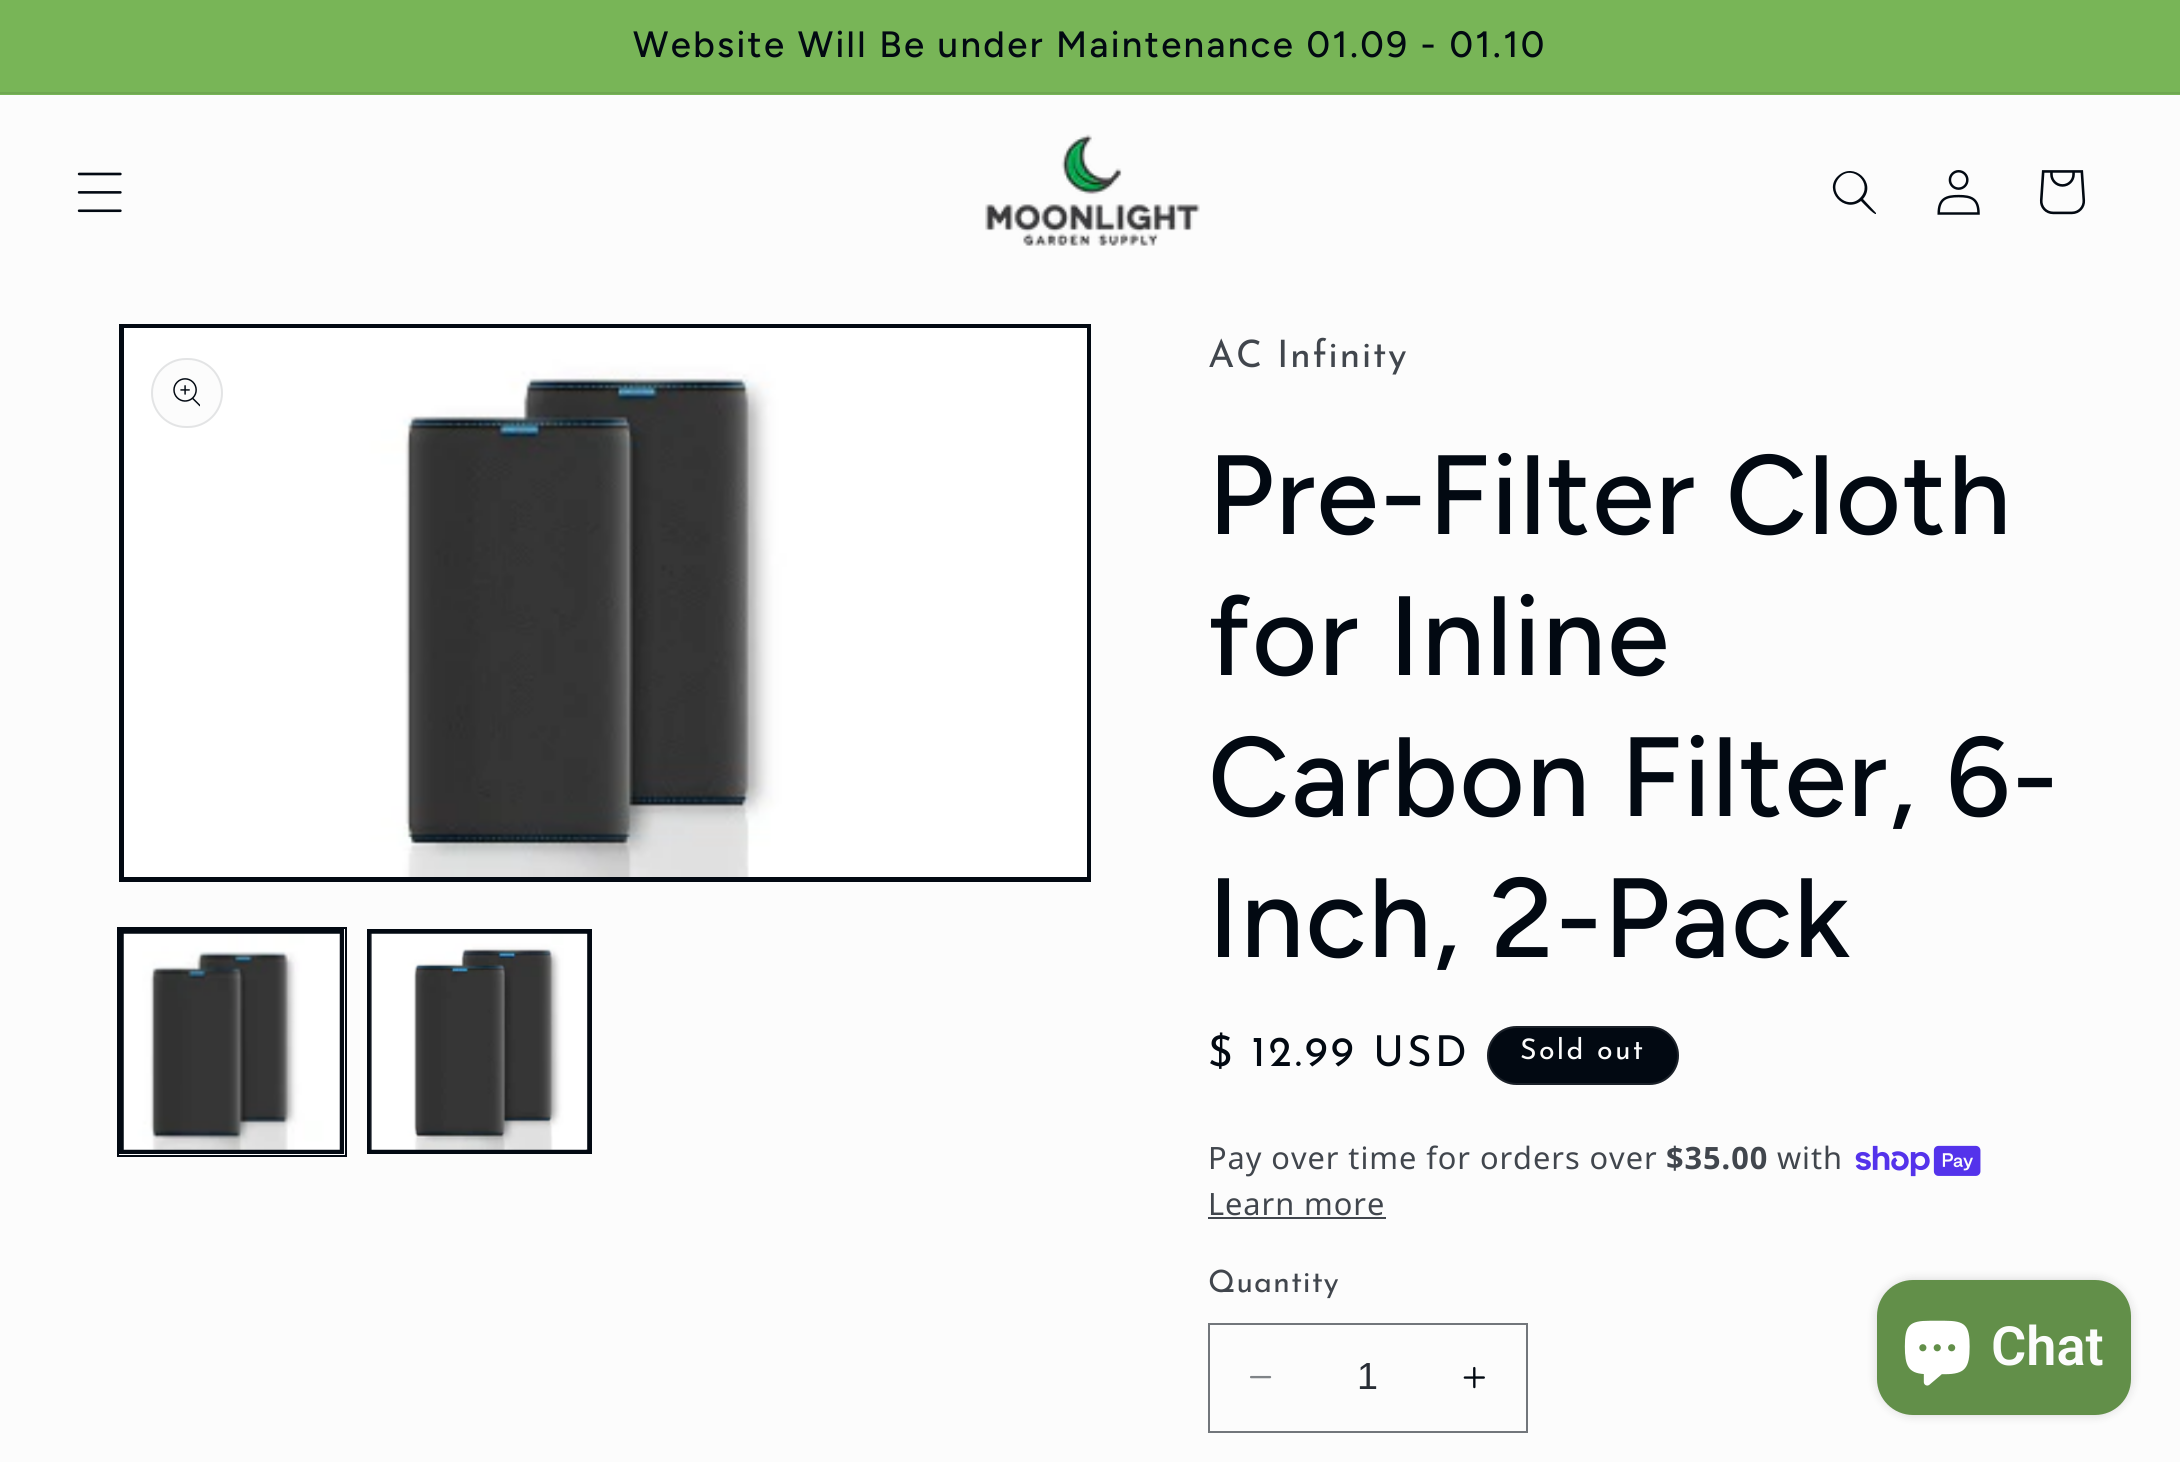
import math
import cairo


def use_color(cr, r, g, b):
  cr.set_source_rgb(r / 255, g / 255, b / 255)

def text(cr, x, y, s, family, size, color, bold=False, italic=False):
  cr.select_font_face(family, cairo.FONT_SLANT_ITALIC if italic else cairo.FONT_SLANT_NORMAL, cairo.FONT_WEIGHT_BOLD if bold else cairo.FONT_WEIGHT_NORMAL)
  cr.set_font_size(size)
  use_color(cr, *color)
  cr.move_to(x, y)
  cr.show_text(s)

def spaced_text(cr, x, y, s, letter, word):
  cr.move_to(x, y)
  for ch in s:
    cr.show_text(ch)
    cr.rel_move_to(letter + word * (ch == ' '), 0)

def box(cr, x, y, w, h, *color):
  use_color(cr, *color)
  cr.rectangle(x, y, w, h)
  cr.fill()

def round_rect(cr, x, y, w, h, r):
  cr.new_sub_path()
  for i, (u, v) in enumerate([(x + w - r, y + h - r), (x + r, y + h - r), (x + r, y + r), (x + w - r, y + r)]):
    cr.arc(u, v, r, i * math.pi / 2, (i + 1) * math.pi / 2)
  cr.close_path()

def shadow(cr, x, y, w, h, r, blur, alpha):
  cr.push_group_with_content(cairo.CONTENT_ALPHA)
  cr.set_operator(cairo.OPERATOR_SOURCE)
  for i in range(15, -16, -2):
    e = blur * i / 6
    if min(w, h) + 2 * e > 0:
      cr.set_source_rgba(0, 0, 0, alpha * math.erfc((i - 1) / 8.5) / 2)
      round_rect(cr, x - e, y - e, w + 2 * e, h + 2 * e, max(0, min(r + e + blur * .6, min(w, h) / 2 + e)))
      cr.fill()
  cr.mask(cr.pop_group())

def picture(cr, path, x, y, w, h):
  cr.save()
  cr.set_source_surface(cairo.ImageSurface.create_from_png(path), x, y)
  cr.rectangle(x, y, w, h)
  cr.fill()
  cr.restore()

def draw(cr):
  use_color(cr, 252, 252, 252)
  cr.paint()
  box(cr, 0, 0, 2180, 95, 120, 181, 87)
  box(cr, 0, 92, 2180, 2, 111, 167, 81)
  picture(cr, "img_01.png", 77, 172, 45, 41)
  picture(cr, "img_02.png", 985, 134, 215, 112)
  use_color(cr, 2, 9, 18)
  cr.set_fill_rule(cairo.FILL_RULE_EVEN_ODD)
  cr.new_path()
  cr.move_to(1860, 198)
  cr.curve_to(1847, 211, 1826, 191, 1840, 177)
  cr.curve_to(1853, 164, 1874, 184, 1860, 198)
  cr.close_path()
  cr.move_to(1861, 201)
  cr.curve_to(1844, 214, 1823, 190, 1838, 176)
  cr.curve_to(1854, 161, 1877, 183, 1863, 199)
  cr.line_to(1876, 213)
  cr.line_to(1876, 214)
  cr.curve_to(1874, 215, 1863, 203, 1861, 201)
  cr.close_path()
  cr.fill()
  picture(cr, "img_03.png", 1937, 170, 43, 45)
  picture(cr, "img_04.png", 2039, 170, 47, 45)
  cr.rectangle(121.5, 326.5, 967, 553)
  cr.set_line_width(5)
  cr.stroke()
  picture(cr, "img_05.png", 124, 328, 963, 549)
  use_color(cr, 252, 252, 252)
  round_rect(cr, 152, 359, 70, 68, 34)
  cr.fill_preserve()
  use_color(cr, 227, 228, 229)
  cr.set_line_width(2)
  cr.stroke()
  picture(cr, "img_06.png", 173, 378, 27, 29)
  cr.rectangle(118, 928, 228, 228)
  use_color(cr, 2, 9, 18)
  cr.stroke()
  cr.rectangle(121.5, 931.5, 220, 220)
  cr.set_line_width(5)
  cr.stroke()
  picture(cr, "img_07.png", 123, 933, 217, 217)
  cr.rectangle(369.5, 931.5, 220, 220)
  cr.stroke()
  picture(cr, "img_08.png", 370, 933, 218, 217)
  round_rect(cr, 1487, 1026, 192, 59, 29.5)
  cr.fill()
  round_rect(cr, 1488, 1027, 190, 57, 28.5)
  cr.set_source_rgba(0.988, 0.988, 0.988, 0.1)
  cr.set_line_width(2)
  cr.stroke()
  picture(cr, "img_09.png", 1855, 1145, 126, 32)
  box(cr, 1208, 1217, 178, 2, 65, 70, 77)
  picture(cr, "img_10.png", 1250, 1375, 22, 4)
  picture(cr, "img_11.png", 1463, 1366, 22, 23)
  cr.rectangle(1209, 1324, 318, 108)
  use_color(cr, 114, 118, 123)
  cr.stroke()
  use_color(cr, 0, 0, 0)
  shadow(cr, 1877, 1280, 254, 135, 36, 5.5, 0.15)
  use_color(cr, 98, 143, 73)
  round_rect(cr, 1877, 1280, 254, 135, 36)
  cr.fill()
  picture(cr, "img_12.png", 1904, 1320, 66, 66)
  cr.select_font_face("Figtree Medium")
  cr.set_font_size(36.6)
  use_color(cr, 2, 9, 18)
  spaced_text(cr, 633, 57, "Website Will Be under Maintenance 01.09 - 01.10", 2.35, 0)
  cr.select_font_face("Josefin Sans")
  cr.set_font_size(37.75)
  use_color(cr, 65, 70, 77)
  spaced_text(cr, 1208, 367, "AC Infinity", 1.5, 0)
  cr.select_font_face("Figtree Medium")
  cr.set_font_size(112.5)
  use_color(cr, 2, 9, 18)
  spaced_text(cr, 1208, 534, "Pre-Filter Cloth", 1.7, 0)
  spaced_text(cr, 1208, 675, "for Inline", 1.7, 0)
  spaced_text(cr, 1208, 816, "Carbon Filter, 6-", 1.7, 0)
  spaced_text(cr, 1208, 957, "Inch, 2-Pack", 1.7, 0)
  cr.select_font_face("Josefin Sans")
  cr.set_font_size(42.5)
  spaced_text(cr, 1208, 1066, "$ 12.99 USD", 3, 0)
  cr.set_font_size(28.5)
  use_color(cr, 252, 252, 252)
  spaced_text(cr, 1520, 1059, "Sold out", 2.35, 0)
  cr.select_font_face("Noto Sans")
  cr.set_font_size(30.75)
  use_color(cr, 65, 70, 77)
  spaced_text(cr, 1208, 1169, "Pay over time for orders over", 0.95, 0)
  cr.select_font_face("Noto Sans", cairo.FONT_SLANT_NORMAL, cairo.FONT_WEIGHT_BOLD)
  spaced_text(cr, 1666, 1169, "$35.00", 0.95, 0)
  cr.select_font_face("Noto Sans")
  spaced_text(cr, 1777, 1169, "with", 0.95, 0)
  spaced_text(cr, 1208, 1215, "Learn more", 0.95, 0)
  cr.select_font_face("Josefin Sans")
  spaced_text(cr, 1208, 1292, "Quantity", 0.95, 0)
  text(cr, 1357, 1389, "1", "Liberation Sans", 37.75, (40, 45, 53))
  text(cr, 1991, 1365, "Chat", "Roboto SemiBold", 54, (252, 252, 252))


surface = cairo.ImageSurface(cairo.FORMAT_RGB24, 2180, 1462)
cr = cairo.Context(surface)
options = cairo.FontOptions()
options.set_hint_metrics(cairo.HINT_METRICS_OFF)
options.set_hint_style(cairo.HINT_STYLE_NONE)
cr.set_font_options(options)
cr.set_miter_limit(4)
draw(cr)
surface.write_to_png("out.png")
